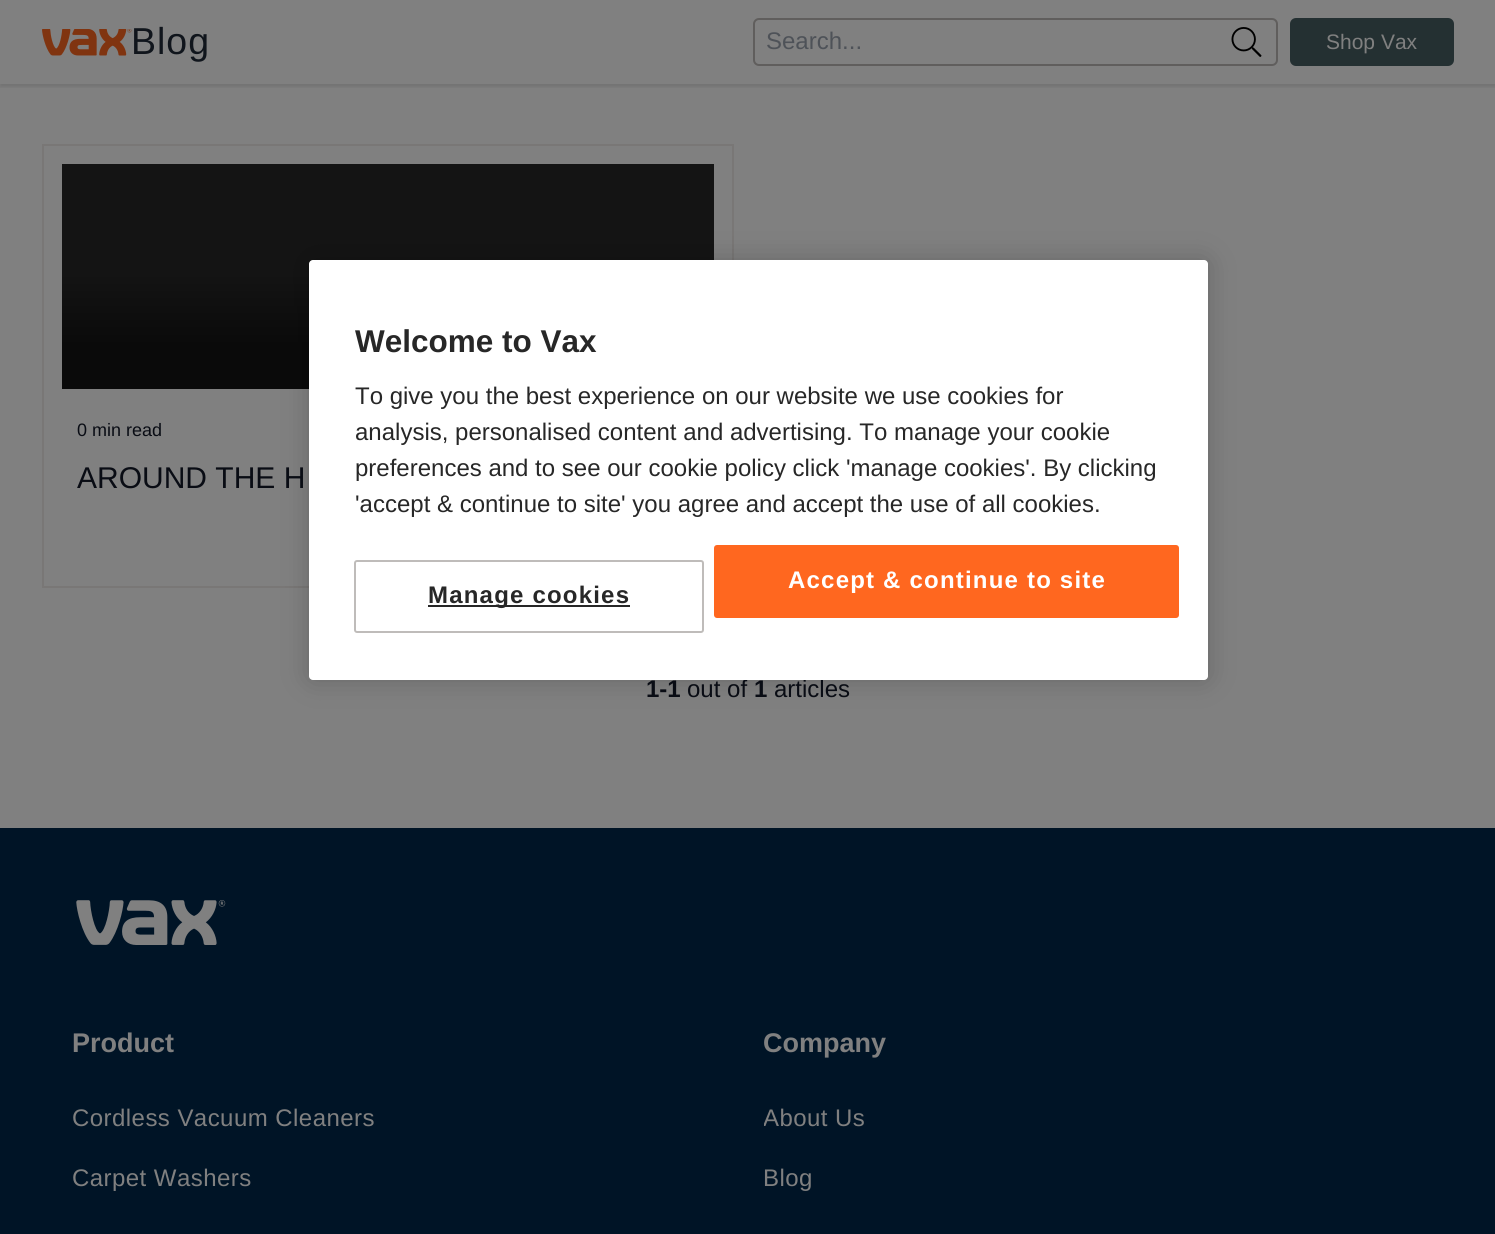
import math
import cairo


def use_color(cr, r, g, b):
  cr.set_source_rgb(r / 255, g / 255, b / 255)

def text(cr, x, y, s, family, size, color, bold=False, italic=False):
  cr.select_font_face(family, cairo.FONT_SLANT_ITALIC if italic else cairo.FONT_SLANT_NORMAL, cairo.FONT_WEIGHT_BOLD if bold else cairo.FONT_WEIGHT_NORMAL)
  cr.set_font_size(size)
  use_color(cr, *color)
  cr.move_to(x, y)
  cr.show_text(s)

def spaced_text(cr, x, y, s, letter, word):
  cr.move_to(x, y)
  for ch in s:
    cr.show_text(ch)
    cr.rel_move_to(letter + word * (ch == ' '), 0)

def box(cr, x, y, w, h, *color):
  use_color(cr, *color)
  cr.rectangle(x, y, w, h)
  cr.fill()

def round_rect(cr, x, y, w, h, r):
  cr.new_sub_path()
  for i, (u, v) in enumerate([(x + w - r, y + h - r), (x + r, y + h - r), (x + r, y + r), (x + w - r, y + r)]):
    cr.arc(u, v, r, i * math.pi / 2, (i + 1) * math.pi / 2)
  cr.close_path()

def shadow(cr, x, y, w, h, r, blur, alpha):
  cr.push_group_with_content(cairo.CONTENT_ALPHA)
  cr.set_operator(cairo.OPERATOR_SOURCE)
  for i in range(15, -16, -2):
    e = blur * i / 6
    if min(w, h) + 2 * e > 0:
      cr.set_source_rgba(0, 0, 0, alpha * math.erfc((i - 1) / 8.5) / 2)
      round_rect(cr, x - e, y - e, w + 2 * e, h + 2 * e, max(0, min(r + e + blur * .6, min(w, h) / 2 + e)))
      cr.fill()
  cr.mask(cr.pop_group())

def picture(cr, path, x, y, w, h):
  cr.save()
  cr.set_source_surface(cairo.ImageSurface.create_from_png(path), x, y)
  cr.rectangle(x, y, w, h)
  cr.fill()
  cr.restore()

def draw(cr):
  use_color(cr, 128, 128, 128)
  cr.paint()
  cr.save()
  cr.rectangle(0, 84, 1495, 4)
  cr.clip()
  use_color(cr, 0, 0, 0)
  shadow(cr, 0, 3, 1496, 84, 0, 1.5, 0.1)
  cr.restore()
  picture(cr, "img_01.png", 42, 29, 90, 27)
  round_rect(cr, 754, 19, 523, 46, 5)
  use_color(cr, 96, 94, 93)
  cr.stroke()
  picture(cr, "img_02.png", 1231, 27, 31, 30)
  use_color(cr, 36, 48, 50)
  round_rect(cr, 1290, 18, 164, 48, 6)
  cr.fill()
  cr.rectangle(43, 145, 690, 442)
  use_color(cr, 121, 119, 118)
  cr.stroke()
  gradient = cairo.LinearGradient(388, 163, 388, 389)
  gradient.add_color_stop_rgba(0.49, 0.078, 0.078, 0.078, 1)
  gradient.add_color_stop_rgba(0.81, 0.039, 0.039, 0.039, 1)
  cr.set_source(gradient)
  cr.rectangle(62, 164, 652, 225)
  cr.fill()
  box(cr, 0, 828, 1495, 406, 0, 20, 38)
  picture(cr, "img_03.png", 76, 900, 150, 45)
  use_color(cr, 0, 0, 0)
  shadow(cr, 309, 260, 899, 420, 4, 13.5, 0.2)
  cr.select_font_face("Liberation Sans")
  cr.set_font_size(37.5)
  use_color(cr, 16, 21, 28)
  spaced_text(cr, 131, 54, "Blog", 1, 0)
  text(cr, 766, 49, "Search...", "Liberation Sans", 24, (78, 82, 88))
  text(cr, 1326, 49, "Shop Vax", "Liberation Sans", 21, (128, 128, 128))
  text(cr, 77, 436, "0 min read", "Liberation Sans", 18, (9, 12, 20))
  text(cr, 77, 488, "AROUND THE H", "Liberation Sans", 30, (9, 12, 20))
  text(cr, 646, 697, "1-1", "Liberation Sans", 24, (9, 12, 20), bold=True)
  text(cr, 687, 697, "out of", "Liberation Sans", 24, (9, 12, 20))
  text(cr, 754, 697, "1", "Liberation Sans", 24, (9, 12, 20), bold=True)
  text(cr, 774, 697, "articles", "Liberation Sans", 24, (9, 12, 20))
  text(cr, 72, 1052, "Product", "Liberation Sans", 27, (128, 128, 128), bold=True)
  cr.select_font_face("Liberation Sans")
  cr.set_font_size(24)
  spaced_text(cr, 72, 1126, "Cordless Vacuum Cleaners", 0.45, 0)
  spaced_text(cr, 72, 1186, "Carpet Washers", 0.45, 0)
  cr.save()
  cr.rectangle(764, 1023, 660, 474)
  cr.clip()
  text(cr, 763, 1052, "Company", "Liberation Sans", 27, (128, 128, 128), bold=True)
  cr.select_font_face("Liberation Sans")
  cr.set_font_size(24)
  spaced_text(cr, 763, 1126, "About Us", 0.45, 0)
  cr.restore()
  spaced_text(cr, 763, 1186, "Blog", 0.45, 0)
  use_color(cr, 255, 255, 255)
  round_rect(cr, 309, 260, 899, 420, 4)
  cr.fill()
  text(cr, 355, 352, "Welcome to Vax", "Liberation Sans", 31.5, (39, 39, 39), bold=True)
  text(cr, 355, 404, "To give you the best experience on our website we use cookies for", "Liberation Sans", 24, (39, 39, 39))
  text(cr, 355, 440, "analysis, personalised content and advertising. To manage your cookie", "Liberation Sans", 24, (39, 39, 39))
  text(cr, 355, 476, "preferences and to see our cookie policy click 'manage cookies'. By clicking", "Liberation Sans", 24, (39, 39, 39))
  text(cr, 355, 512, "'accept & continue to site' you agree and accept the use of all cookies.", "Liberation Sans", 24, (39, 39, 39))
  use_color(cr, 255, 103, 31)
  round_rect(cr, 715, 546, 463, 71, 2)
  cr.fill_preserve()
  cr.stroke()
  cr.select_font_face("Liberation Sans", cairo.FONT_SLANT_NORMAL, cairo.FONT_WEIGHT_BOLD)
  use_color(cr, 255, 255, 255)
  spaced_text(cr, 788, 588, "Accept & continue to site", 1.2, 0)
  round_rect(cr, 355, 561, 348, 71, 2)
  use_color(cr, 191, 188, 186)
  cr.stroke()
  box(cr, 428, 605, 202, 2, 39, 39, 39)
  spaced_text(cr, 428, 603, "Manage cookies", 1.2, 0)


surface = cairo.ImageSurface(cairo.FORMAT_RGB24, 1495, 1234)
cr = cairo.Context(surface)
options = cairo.FontOptions()
options.set_hint_metrics(cairo.HINT_METRICS_OFF)
options.set_hint_style(cairo.HINT_STYLE_NONE)
cr.set_font_options(options)
cr.set_miter_limit(4)
draw(cr)
surface.write_to_png("out.png")
